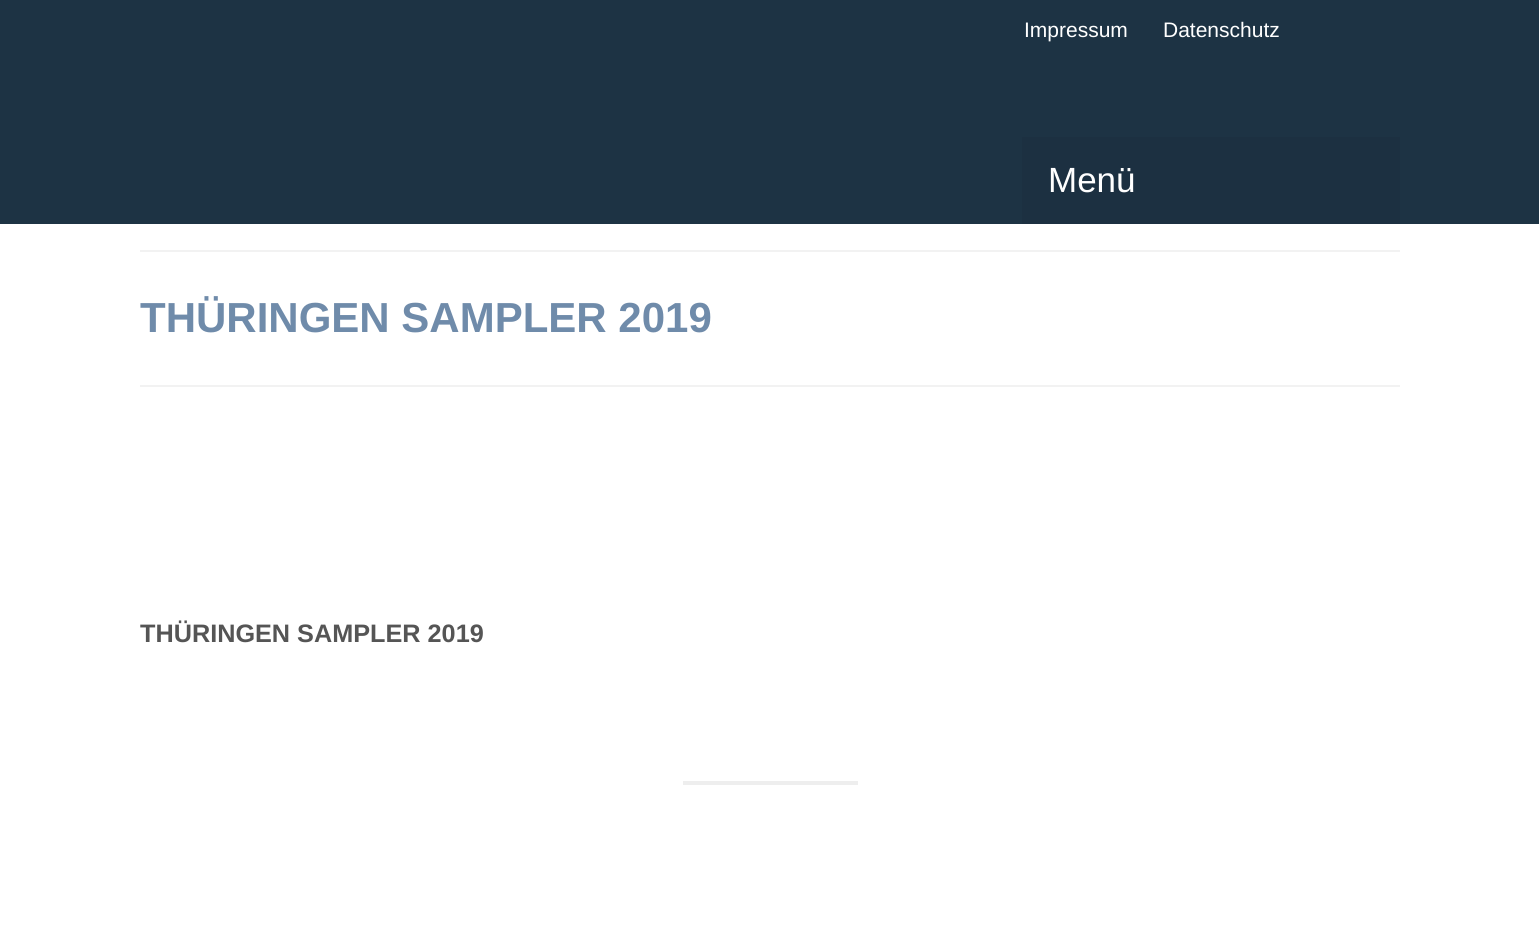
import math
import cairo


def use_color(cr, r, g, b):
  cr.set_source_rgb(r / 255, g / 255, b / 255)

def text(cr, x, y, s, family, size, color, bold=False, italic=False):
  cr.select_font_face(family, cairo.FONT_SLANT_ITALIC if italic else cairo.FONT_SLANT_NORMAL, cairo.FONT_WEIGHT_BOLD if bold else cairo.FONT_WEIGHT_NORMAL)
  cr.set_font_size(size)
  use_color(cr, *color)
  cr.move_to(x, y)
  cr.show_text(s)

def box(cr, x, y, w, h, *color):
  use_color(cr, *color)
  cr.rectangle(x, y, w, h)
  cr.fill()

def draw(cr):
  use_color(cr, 255, 255, 255)
  cr.paint()
  box(cr, 0, 0, 1539, 224, 29, 51, 68)
  box(cr, 1022, 137, 378, 87, 28, 48, 65)
  box(cr, 140, 250, 1260, 2, 242, 242, 242)
  box(cr, 140, 385, 1260, 2, 242, 242, 242)
  box(cr, 683, 781, 175, 4, 238, 238, 238)
  text(cr, 1024, 37, "Impressum", "Liberation Sans", 21, (255, 255, 255))
  text(cr, 1163, 37, "Datenschutz", "Liberation Sans", 21, (255, 255, 255))
  text(cr, 1048, 192, "Menü", "Liberation Sans", 35, (255, 255, 255))
  text(cr, 140, 332, "THÜRINGEN SAMPLER 2019", "Liberation Sans", 42, (111, 139, 170), bold=True)
  text(cr, 140, 642, "THÜRINGEN SAMPLER 2019", "Liberation Sans", 25.25, (85, 85, 85), bold=True)


surface = cairo.ImageSurface(cairo.FORMAT_RGB24, 1539, 935)
cr = cairo.Context(surface)
options = cairo.FontOptions()
options.set_hint_metrics(cairo.HINT_METRICS_OFF)
options.set_hint_style(cairo.HINT_STYLE_NONE)
cr.set_font_options(options)
cr.set_miter_limit(4)
draw(cr)
surface.write_to_png("out.png")
